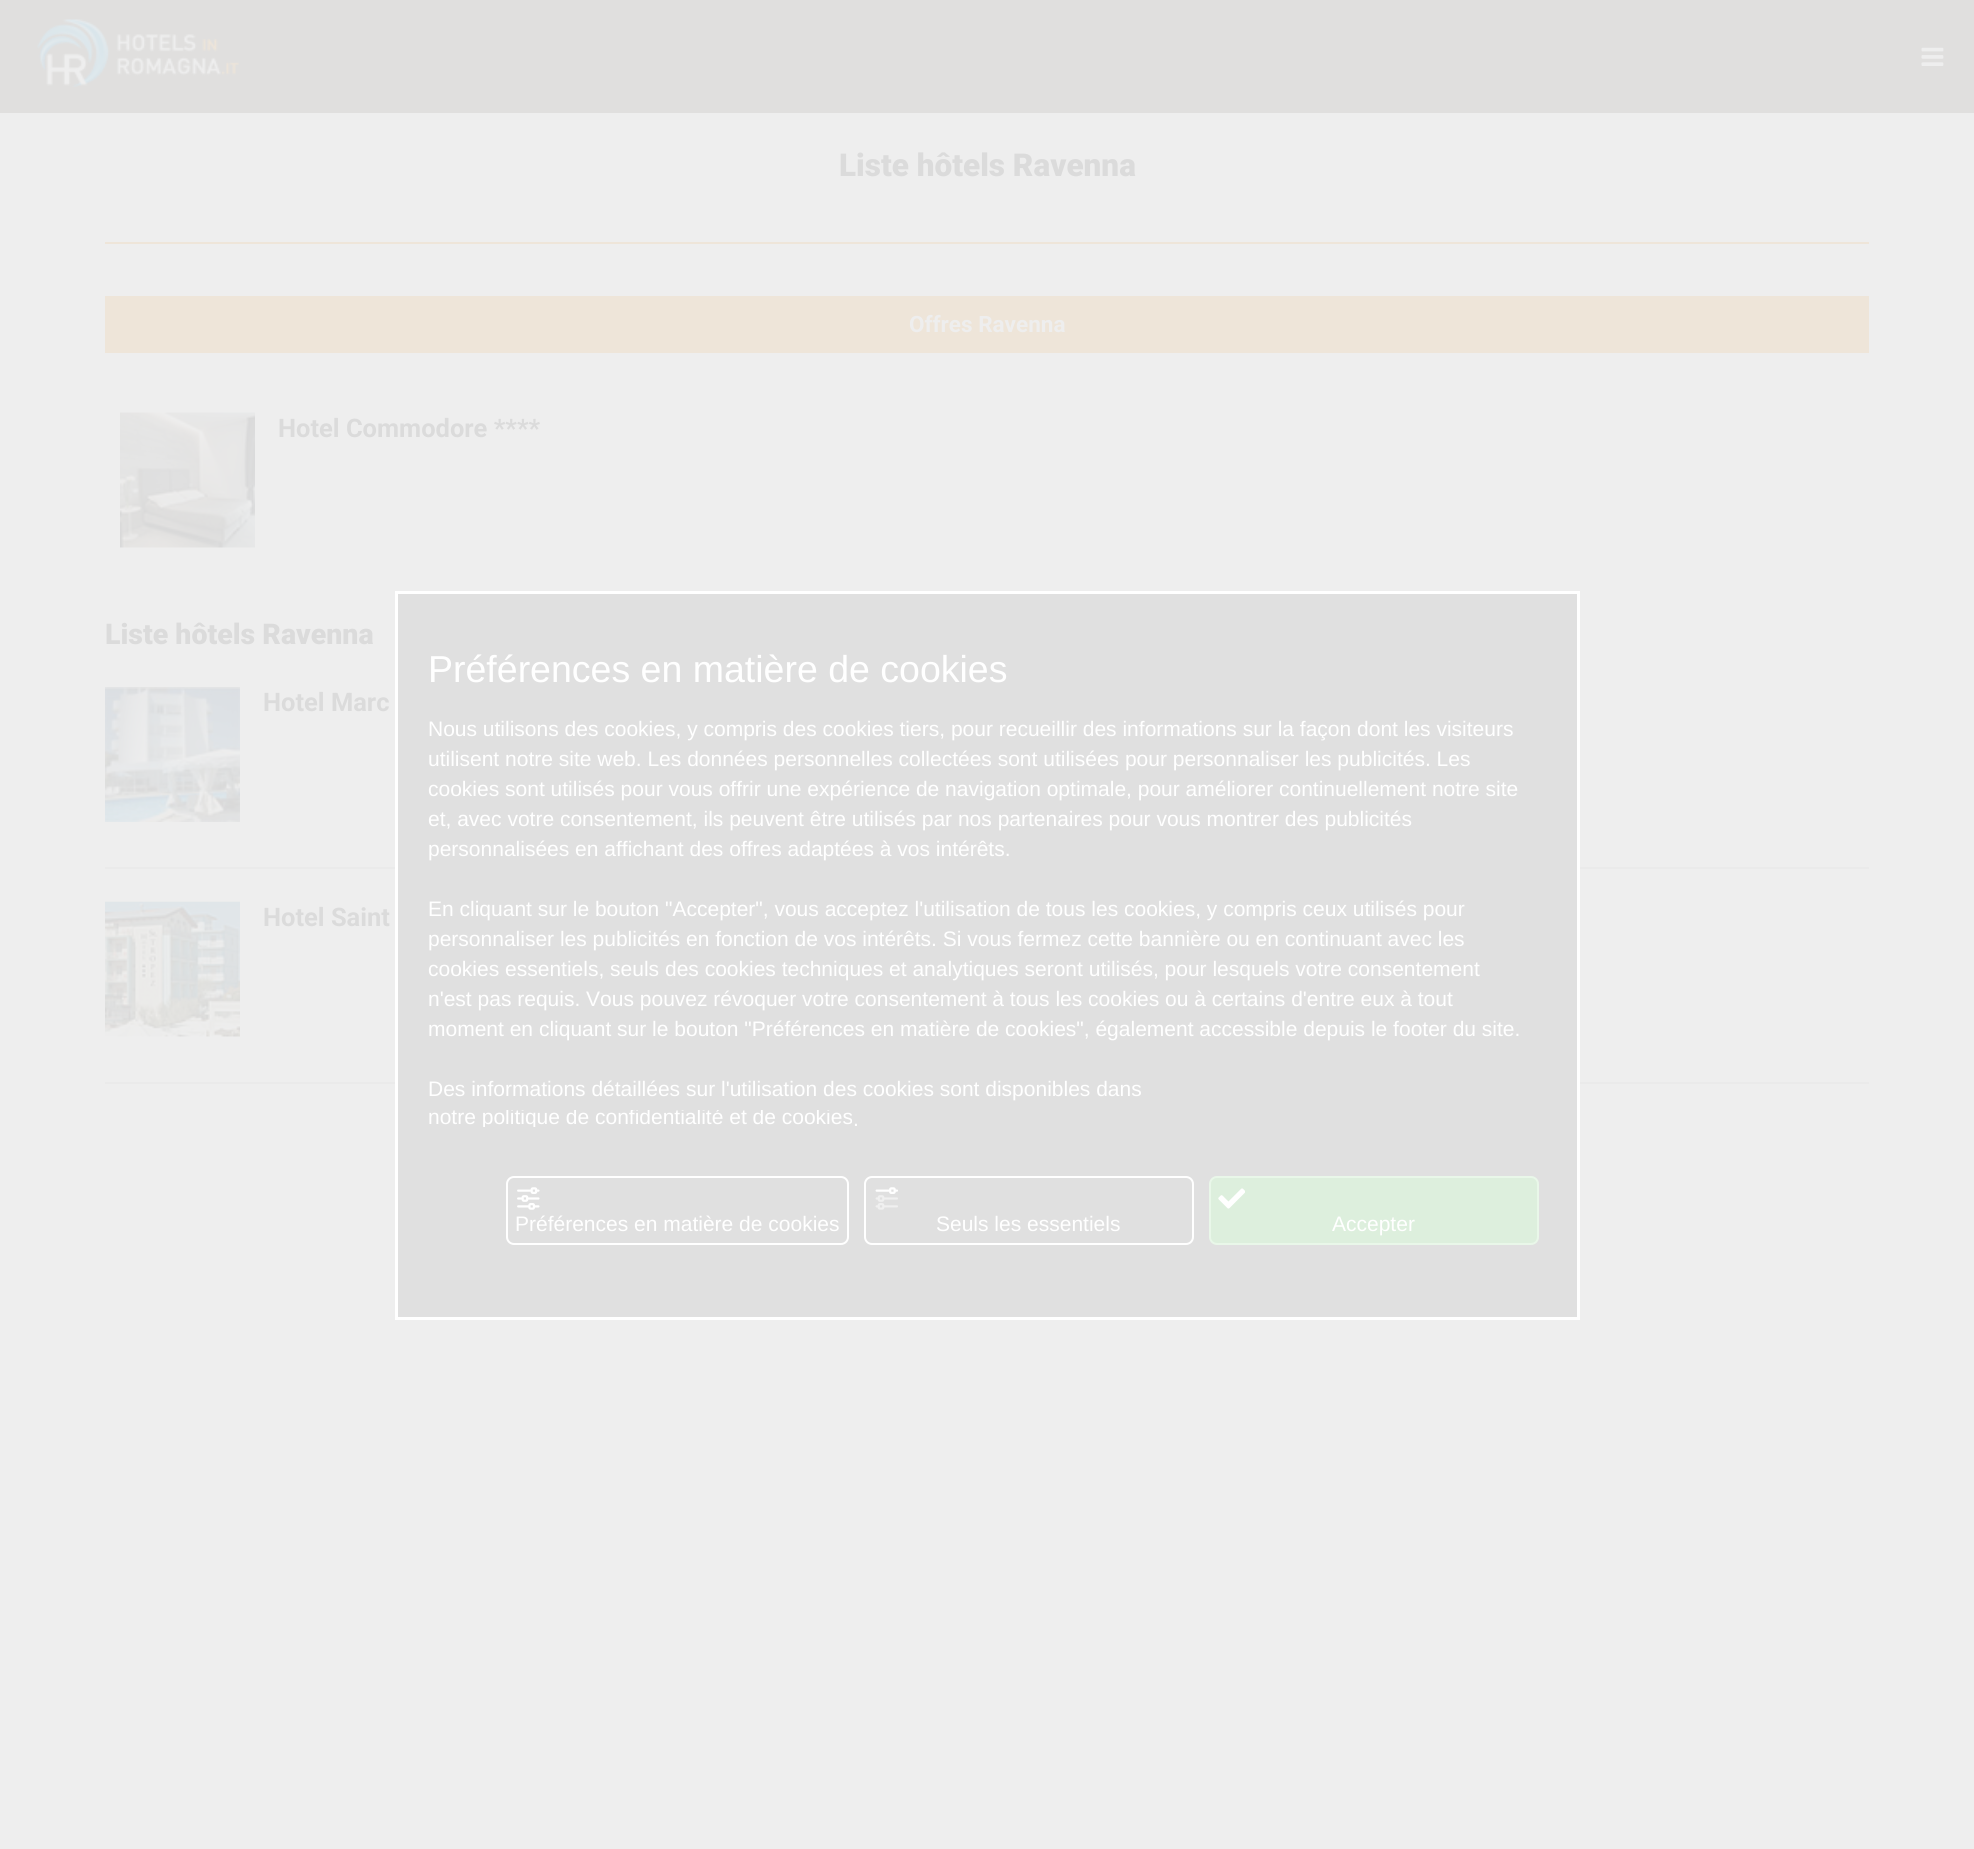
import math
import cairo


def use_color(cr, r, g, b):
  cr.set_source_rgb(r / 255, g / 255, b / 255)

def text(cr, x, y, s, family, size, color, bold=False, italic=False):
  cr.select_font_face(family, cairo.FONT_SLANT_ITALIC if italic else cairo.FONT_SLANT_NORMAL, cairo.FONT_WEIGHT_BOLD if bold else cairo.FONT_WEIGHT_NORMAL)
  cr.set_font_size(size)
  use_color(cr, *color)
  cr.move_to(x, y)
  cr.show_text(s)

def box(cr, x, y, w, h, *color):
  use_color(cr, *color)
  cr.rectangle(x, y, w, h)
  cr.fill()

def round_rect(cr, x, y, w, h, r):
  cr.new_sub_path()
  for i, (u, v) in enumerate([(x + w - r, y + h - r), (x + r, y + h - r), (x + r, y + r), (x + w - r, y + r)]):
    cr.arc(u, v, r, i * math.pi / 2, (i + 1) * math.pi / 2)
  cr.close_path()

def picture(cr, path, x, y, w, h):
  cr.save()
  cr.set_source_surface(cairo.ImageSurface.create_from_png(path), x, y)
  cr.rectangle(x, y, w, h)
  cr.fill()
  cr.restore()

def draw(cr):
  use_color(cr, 238, 238, 238)
  cr.paint()
  box(cr, 0, 0, 1974, 113, 224, 223, 222)
  picture(cr, "img_01.png", 37, 19, 202, 68)
  picture(cr, "img_02.png", 1921, 47, 23, 19)
  box(cr, 105, 242, 1764, 2, 238, 229, 217)
  box(cr, 105, 296, 1764, 57, 238, 229, 217)
  picture(cr, "img_03.png", 120, 412, 135, 136)
  picture(cr, "img_04.png", 105, 687, 135, 135)
  box(cr, 105, 867, 1764, 2, 234, 234, 234)
  picture(cr, "img_05.png", 105, 901, 135, 136)
  box(cr, 105, 1082, 1764, 2, 234, 234, 234)
  use_color(cr, 224, 224, 224)
  cr.rectangle(396.5, 592.5, 1182, 726)
  cr.fill_preserve()
  use_color(cr, 255, 255, 255)
  cr.set_line_width(3)
  cr.stroke()
  round_rect(cr, 507, 1177, 341, 67, 7)
  cr.set_line_width(2)
  cr.stroke()
  picture(cr, "img_06.png", 517, 1187, 23, 23)
  round_rect(cr, 865, 1177, 328, 67, 7)
  cr.stroke()
  picture(cr, "img_07.png", 875, 1187, 23, 23)
  use_color(cr, 221, 239, 221)
  round_rect(cr, 1210, 1177, 328, 67, 7)
  cr.fill_preserve()
  use_color(cr, 233, 247, 233)
  cr.stroke()
  picture(cr, "img_08.png", 1218, 1188, 27, 21)
  text(cr, 839, 176, "Liste hôtels Ravenna", "Roboto Black", 31.5, (219, 219, 219))
  text(cr, 909, 332, "Offres Ravenna", "Roboto", 22.5, (238, 238, 238), bold=True)
  text(cr, 278, 437, "Hotel Commodore ****", "Roboto", 25.5, (219, 219, 219), bold=True)
  text(cr, 105, 644, "Liste hôtels Ravenna", "Roboto Black", 28.5, (219, 219, 219))
  text(cr, 263, 711, "Hotel Marc", "Roboto", 25.5, (219, 219, 219), bold=True)
  text(cr, 263, 926, "Hotel Saint", "Roboto", 25.5, (219, 219, 219), bold=True)
  text(cr, 428, 682, "Préférences en matière de cookies", "Liberation Sans", 37.5, (255, 255, 255))
  text(cr, 428, 736, "Nous utilisons des cookies, y compris des cookies tiers, pour recueillir des informations sur la façon dont les visiteurs", "Liberation Sans", 21, (255, 255, 255))
  text(cr, 428, 766, "utilisent notre site web. Les données personnelles collectées sont utilisées pour personnaliser les publicités. Les", "Liberation Sans", 21, (255, 255, 255))
  text(cr, 428, 796, "cookies sont utilisés pour vous offrir une expérience de navigation optimale, pour améliorer continuellement notre site", "Liberation Sans", 21, (255, 255, 255))
  text(cr, 428, 826, "et, avec votre consentement, ils peuvent être utilisés par nos partenaires pour vous montrer des publicités", "Liberation Sans", 21, (255, 255, 255))
  text(cr, 428, 856, "personnalisées en affichant des offres adaptées à vos intérêts.", "Liberation Sans", 21, (255, 255, 255))
  text(cr, 428, 916, "En cliquant sur le bouton \"Accepter\", vous acceptez l'utilisation de tous les cookies, y compris ceux utilisés pour", "Liberation Sans", 21, (255, 255, 255))
  text(cr, 428, 946, "personnaliser les publicités en fonction de vos intérêts. Si vous fermez cette bannière ou en continuant avec les", "Liberation Sans", 21, (255, 255, 255))
  text(cr, 428, 976, "cookies essentiels, seuls des cookies techniques et analytiques seront utilisés, pour lesquels votre consentement", "Liberation Sans", 21, (255, 255, 255))
  text(cr, 428, 1006, "n'est pas requis. Vous pouvez révoquer votre consentement à tous les cookies ou à certains d'entre eux à tout", "Liberation Sans", 21, (255, 255, 255))
  text(cr, 428, 1036, "moment en cliquant sur le bouton \"Préférences en matière de cookies\", également accessible depuis le footer du site.", "Liberation Sans", 21, (255, 255, 255))
  text(cr, 428, 1096, "Des informations détaillées sur l'utilisation des cookies sont disponibles dans", "Liberation Sans", 21, (255, 255, 255))
  cr.save()
  cr.rectangle(428, 1110, 424, 17)
  cr.clip()
  text(cr, 428, 1124, "notre politique de confidentialité et de cookies", "Liberation Sans", 21, (255, 255, 255))
  cr.restore()
  text(cr, 853, 1126, ".", "Liberation Sans", 21, (255, 255, 255))
  text(cr, 515, 1231, "Préférences en matière de cookies", "Liberation Sans", 21, (255, 255, 255))
  text(cr, 936, 1231, "Seuls les essentiels", "Liberation Sans", 21, (255, 255, 255))
  text(cr, 1332, 1231, "Accepter", "Liberation Sans", 21, (255, 255, 255))


surface = cairo.ImageSurface(cairo.FORMAT_RGB24, 1974, 1849)
cr = cairo.Context(surface)
options = cairo.FontOptions()
options.set_hint_metrics(cairo.HINT_METRICS_OFF)
options.set_hint_style(cairo.HINT_STYLE_NONE)
cr.set_font_options(options)
cr.set_miter_limit(4)
draw(cr)
surface.write_to_png("out.png")
